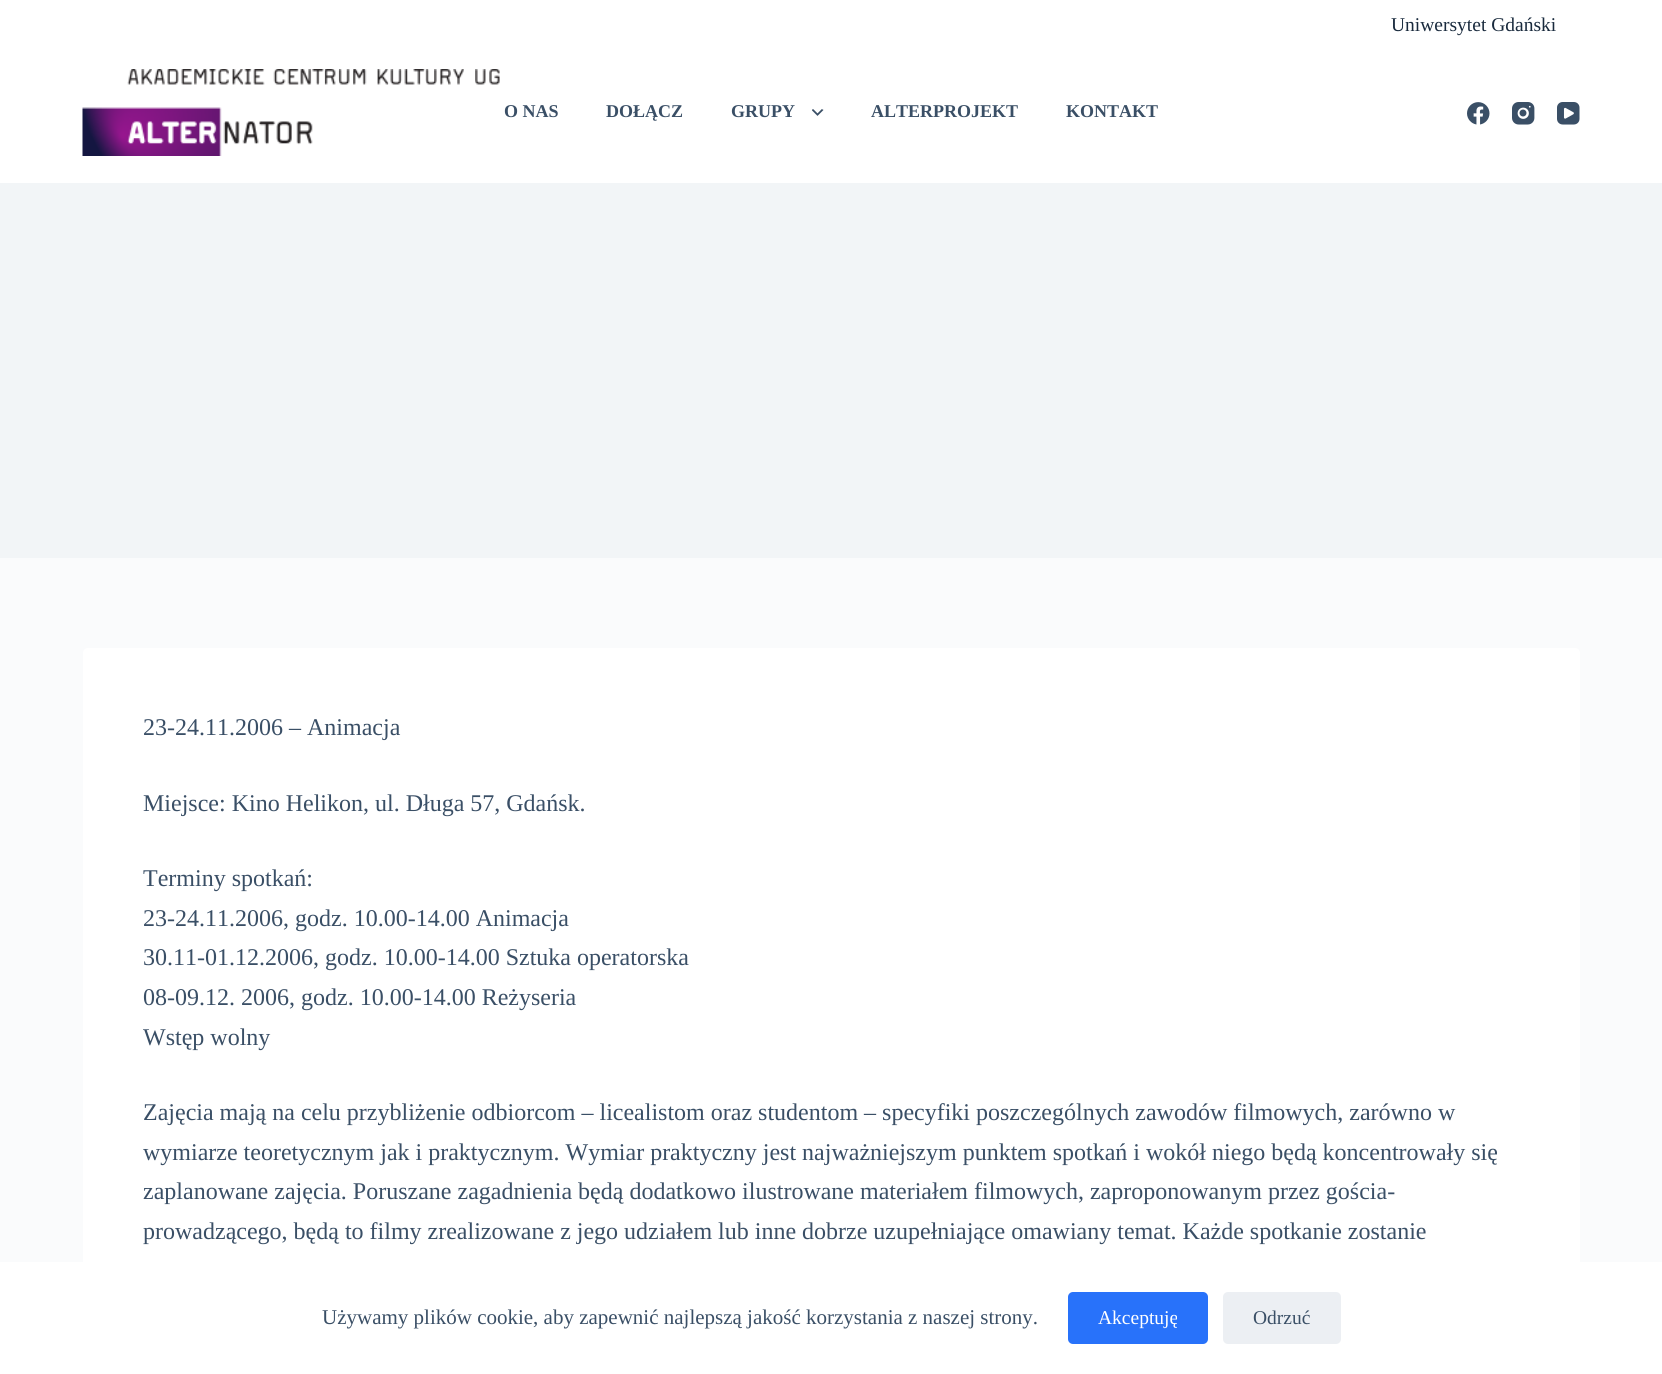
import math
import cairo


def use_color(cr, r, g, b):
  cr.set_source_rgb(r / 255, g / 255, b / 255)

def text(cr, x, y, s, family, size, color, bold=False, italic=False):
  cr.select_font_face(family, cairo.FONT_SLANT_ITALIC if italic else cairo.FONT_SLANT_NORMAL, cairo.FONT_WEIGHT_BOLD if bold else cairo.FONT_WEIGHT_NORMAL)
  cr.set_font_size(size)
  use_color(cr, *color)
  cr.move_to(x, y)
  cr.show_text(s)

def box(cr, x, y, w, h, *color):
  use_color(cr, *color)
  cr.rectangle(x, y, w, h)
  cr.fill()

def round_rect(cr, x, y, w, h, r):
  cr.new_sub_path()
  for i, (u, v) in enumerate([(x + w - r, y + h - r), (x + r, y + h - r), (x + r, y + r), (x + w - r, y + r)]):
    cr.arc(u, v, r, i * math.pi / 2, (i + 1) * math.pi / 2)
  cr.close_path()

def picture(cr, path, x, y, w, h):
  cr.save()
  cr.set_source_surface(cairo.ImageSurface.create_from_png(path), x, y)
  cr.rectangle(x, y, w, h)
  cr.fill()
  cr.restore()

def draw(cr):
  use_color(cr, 250, 251, 252)
  cr.paint()
  box(cr, 0, 0, 1662, 183, 255, 255, 255)
  picture(cr, "img_01.png", 82, 69, 418, 87)
  picture(cr, "img_02.png", 812, 109, 12, 7)
  picture(cr, "img_03.png", 1467, 102, 23, 23)
  picture(cr, "img_04.png", 1512, 102, 23, 23)
  picture(cr, "img_05.png", 1557, 102, 23, 23)
  box(cr, 0, 183, 1662, 375, 242, 245, 247)
  use_color(cr, 255, 255, 255)
  round_rect(cr, 83, 648, 1497, 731, 5)
  cr.fill()
  box(cr, 0, 1262, 1662, 112, 255, 255, 255)
  use_color(cr, 40, 114, 250)
  round_rect(cr, 1068, 1292, 140, 52, 5)
  cr.fill()
  use_color(cr, 236, 239, 243)
  round_rect(cr, 1223, 1292, 118, 52, 5)
  cr.fill()
  text(cr, 1391, 31, "Uniwersytet Gdański", "Liberation Serif", 19.5, (25, 42, 61))
  text(cr, 504, 117, "O NAS", "Liberation Serif", 18, (58, 79, 102), bold=True)
  text(cr, 606, 117, "DOŁĄCZ", "Liberation Serif", 18, (58, 79, 102), bold=True)
  text(cr, 731, 117, "GRUPY", "Liberation Serif", 18, (58, 79, 102), bold=True)
  text(cr, 871, 117, "ALTERPROJEKT", "Liberation Serif", 18, (58, 79, 102), bold=True)
  text(cr, 1066, 117, "KONTAKT", "Liberation Serif", 18, (58, 79, 102), bold=True)
  text(cr, 143, 735, "23-24.11.2006 – Animacja", "Liberation Serif", 24, (58, 79, 102))
  text(cr, 143, 811, "Miejsce: Kino Helikon, ul. Długa 57, Gdańsk.", "Liberation Serif", 24, (58, 79, 102))
  text(cr, 143, 886, "Terminy spotkań:", "Liberation Serif", 24, (58, 79, 102))
  text(cr, 143, 926, "23-24.11.2006, godz. 10.00-14.00 Animacja", "Liberation Serif", 24, (58, 79, 102))
  text(cr, 143, 965, "30.11-01.12.2006, godz. 10.00-14.00 Sztuka operatorska", "Liberation Serif", 24, (58, 79, 102))
  text(cr, 143, 1005, "08-09.12. 2006, godz. 10.00-14.00 Reżyseria", "Liberation Serif", 24, (58, 79, 102))
  text(cr, 143, 1045, "Wstęp wolny", "Liberation Serif", 24, (58, 79, 102))
  text(cr, 143, 1120, "Zajęcia mają na celu przybliżenie odbiorcom – licealistom oraz studentom – specyfiki poszczególnych zawodów filmowych, zarówno w", "Liberation Serif", 24, (58, 79, 102))
  text(cr, 143, 1160, "wymiarze teoretycznym jak i praktycznym. Wymiar praktyczny jest najważniejszym punktem spotkań i wokół niego będą koncentrowały się", "Liberation Serif", 24, (58, 79, 102))
  text(cr, 143, 1199, "zaplanowane zajęcia. Poruszane zagadnienia będą dodatkowo ilustrowane materiałem filmowych, zaproponowanym przez gościa-", "Liberation Serif", 24, (58, 79, 102))
  text(cr, 143, 1239, "prowadzącego, będą to filmy zrealizowane z jego udziałem lub inne dobrze uzupełniające omawiany temat. Każde spotkanie zostanie", "Liberation Serif", 24, (58, 79, 102))
  text(cr, 322, 1324, "Używamy plików cookie, aby zapewnić najlepszą jakość korzystania z naszej strony.", "Liberation Serif", 21, (58, 79, 102))
  text(cr, 1098, 1324, "Akceptuję", "Liberation Serif", 19.5, (255, 255, 255))
  text(cr, 1253, 1324, "Odrzuć", "Liberation Serif", 19.5, (58, 79, 102))


surface = cairo.ImageSurface(cairo.FORMAT_RGB24, 1662, 1374)
cr = cairo.Context(surface)
options = cairo.FontOptions()
options.set_hint_metrics(cairo.HINT_METRICS_OFF)
options.set_hint_style(cairo.HINT_STYLE_NONE)
cr.set_font_options(options)
cr.set_miter_limit(4)
draw(cr)
surface.write_to_png("out.png")
